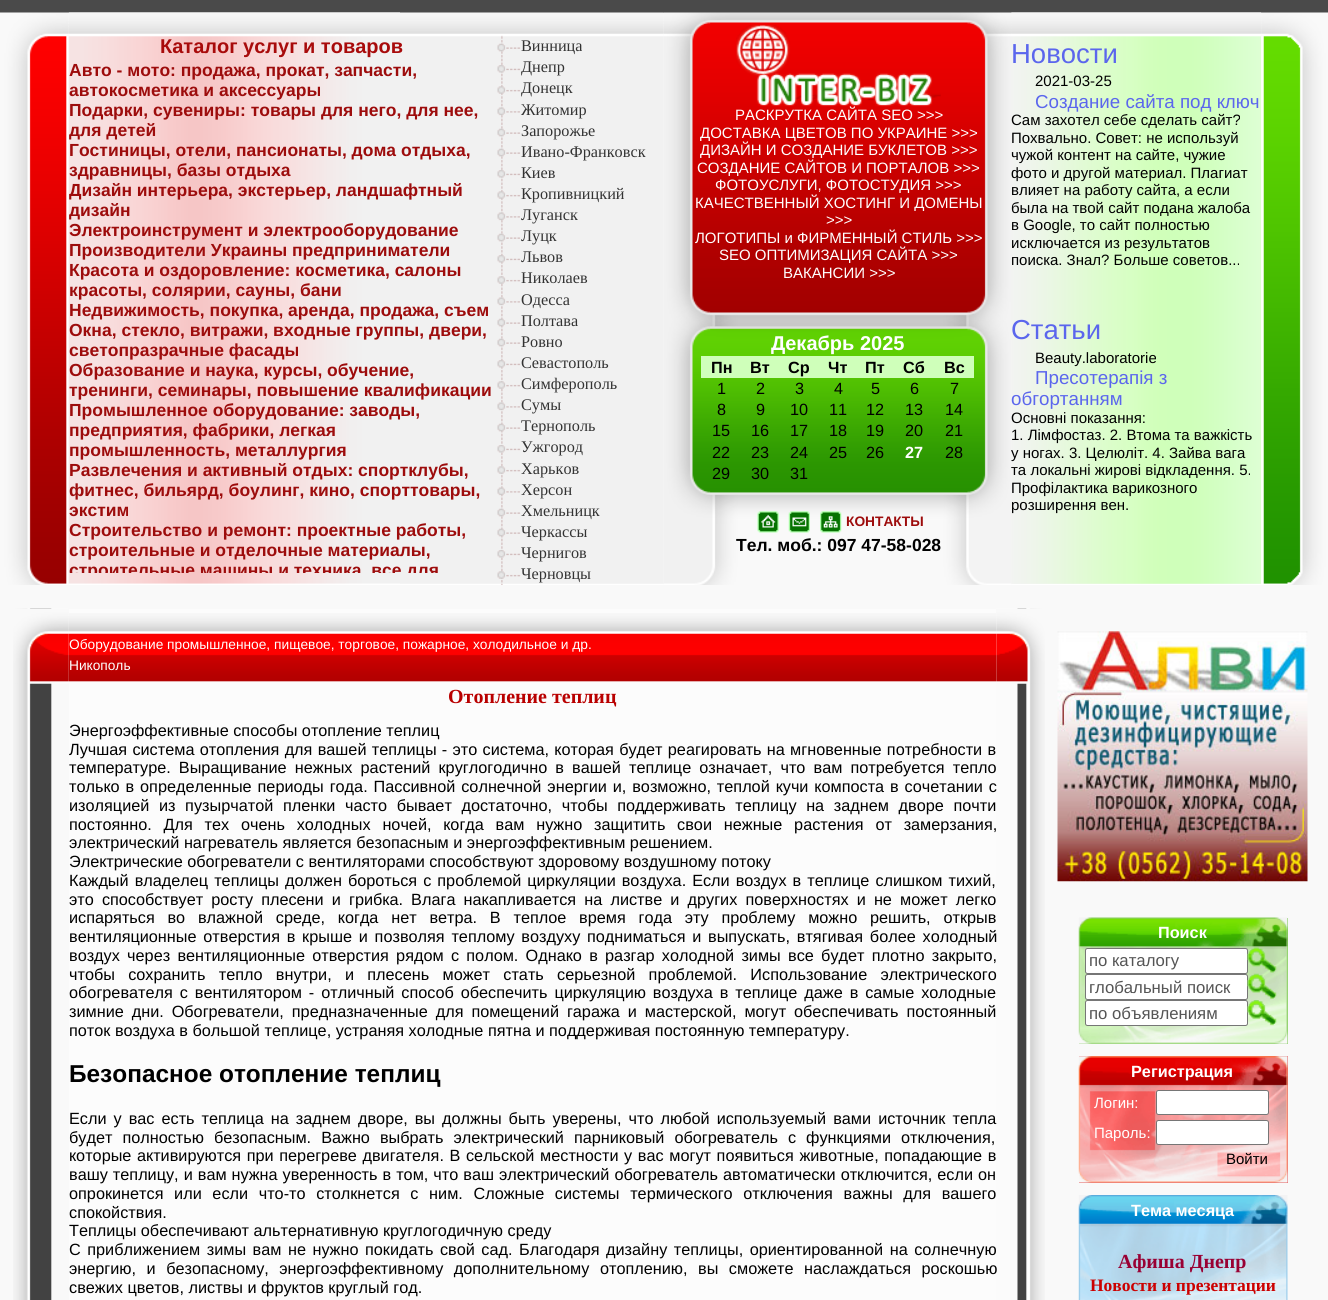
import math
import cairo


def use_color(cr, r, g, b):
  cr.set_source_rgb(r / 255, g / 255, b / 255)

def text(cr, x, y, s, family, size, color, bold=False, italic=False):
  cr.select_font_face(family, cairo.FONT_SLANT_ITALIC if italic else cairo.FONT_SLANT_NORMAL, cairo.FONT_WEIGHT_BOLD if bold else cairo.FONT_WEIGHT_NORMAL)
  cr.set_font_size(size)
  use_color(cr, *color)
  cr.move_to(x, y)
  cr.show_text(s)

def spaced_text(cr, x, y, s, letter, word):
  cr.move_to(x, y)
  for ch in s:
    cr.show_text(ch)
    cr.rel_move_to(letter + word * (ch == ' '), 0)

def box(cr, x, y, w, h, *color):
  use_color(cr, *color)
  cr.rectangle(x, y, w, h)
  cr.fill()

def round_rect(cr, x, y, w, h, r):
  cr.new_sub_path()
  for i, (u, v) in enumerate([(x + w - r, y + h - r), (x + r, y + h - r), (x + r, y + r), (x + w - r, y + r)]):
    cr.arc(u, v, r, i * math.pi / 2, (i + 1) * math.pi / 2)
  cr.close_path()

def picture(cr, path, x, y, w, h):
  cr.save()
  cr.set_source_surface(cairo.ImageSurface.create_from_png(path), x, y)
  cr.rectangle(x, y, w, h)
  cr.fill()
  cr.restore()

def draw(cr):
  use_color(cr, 249, 249, 249)
  cr.paint()
  box(cr, 0, 0, 1328, 13, 74, 74, 74)
  picture(cr, "img_01.png", 0, 12, 69, 573)
  picture(cr, "img_02.png", 68, 12, 596, 573)
  picture(cr, "img_03.png", 68, 12, 332, 572)
  picture(cr, "img_04.png", 501, 35, 2, 550)
  picture(cr, "img_05.png", 497, 43, 24, 9)
  picture(cr, "img_06.png", 497, 65, 24, 8)
  picture(cr, "img_07.png", 497, 86, 24, 8)
  picture(cr, "img_08.png", 497, 107, 23, 9)
  picture(cr, "img_09.png", 497, 128, 24, 9)
  picture(cr, "img_05.png", 497, 148, 24, 9)
  picture(cr, "img_06.png", 497, 170, 24, 8)
  picture(cr, "img_07.png", 497, 191, 24, 8)
  picture(cr, "img_08.png", 497, 212, 23, 9)
  picture(cr, "img_09.png", 497, 233, 24, 9)
  picture(cr, "img_10.png", 497, 255, 24, 8)
  picture(cr, "img_11.png", 497, 276, 24, 8)
  picture(cr, "img_12.png", 497, 297, 23, 9)
  picture(cr, "img_13.png", 497, 318, 24, 9)
  picture(cr, "img_09.png", 497, 338, 24, 9)
  picture(cr, "img_10.png", 497, 360, 24, 8)
  picture(cr, "img_11.png", 497, 381, 24, 8)
  picture(cr, "img_12.png", 497, 402, 23, 9)
  picture(cr, "img_13.png", 497, 423, 24, 9)
  picture(cr, "img_14.png", 497, 445, 24, 8)
  picture(cr, "img_15.png", 497, 466, 24, 8)
  picture(cr, "img_16.png", 497, 487, 23, 9)
  picture(cr, "img_05.png", 497, 508, 24, 9)
  picture(cr, "img_13.png", 497, 528, 24, 9)
  picture(cr, "img_14.png", 497, 550, 24, 8)
  picture(cr, "img_15.png", 497, 571, 24, 8)
  picture(cr, "img_17.png", 663, 12, 349, 308)
  picture(cr, "img_18.png", 664, 320, 347, 265)
  picture(cr, "img_19.png", 736, 25, 205, 82)
  box(cr, 701, 356, 273, 22, 207, 255, 186)
  picture(cr, "img_20.png", 757, 511, 22, 22)
  picture(cr, "img_21.png", 788, 511, 22, 22)
  picture(cr, "img_22.png", 820, 511, 22, 22)
  picture(cr, "img_23.png", 1011, 12, 251, 573)
  picture(cr, "img_24.png", 1011, 12, 251, 572)
  picture(cr, "img_25.png", 1261, 12, 67, 573)
  picture(cr, "img_26.png", 13, 608, 39, 692)
  box(cr, 69, 609, 927, 691, 252, 252, 252)
  picture(cr, "img_28.png", 68, 613, 929, 69)
  picture(cr, "img_27.png", 13, 608, 56, 76)
  picture(cr, "img_29.png", 996, 608, 49, 692)
  picture(cr, "img_30.png", 996, 608, 49, 76)
  picture(cr, "img_31.png", 1057, 631, 251, 251)
  box(cr, 1079, 918, 209, 126, 114, 196, 71)
  picture(cr, "img_32.png", 1078, 917, 210, 127)
  use_color(cr, 255, 255, 255)
  round_rect(cr, 1085.5, 948.5, 162, 25, 2)
  cr.fill_preserve()
  use_color(cr, 118, 118, 118)
  cr.set_line_width(1)
  cr.stroke()
  picture(cr, "img_33.png", 1247, 947, 30, 26)
  use_color(cr, 255, 255, 255)
  round_rect(cr, 1085.5, 974.5, 162, 25, 2)
  cr.fill_preserve()
  use_color(cr, 118, 118, 118)
  cr.stroke()
  picture(cr, "img_34.png", 1247, 973, 30, 26)
  use_color(cr, 255, 255, 255)
  round_rect(cr, 1085.5, 1000.5, 162, 25, 2)
  cr.fill_preserve()
  use_color(cr, 118, 118, 118)
  cr.stroke()
  picture(cr, "img_35.png", 1247, 1000, 30, 26)
  box(cr, 1079, 1056, 209, 127, 226, 90, 90)
  picture(cr, "img_36.png", 1078, 1056, 210, 127)
  use_color(cr, 255, 255, 255)
  round_rect(cr, 1156.5, 1090.5, 112, 24, 2)
  cr.fill_preserve()
  use_color(cr, 118, 118, 118)
  cr.stroke()
  use_color(cr, 255, 255, 255)
  round_rect(cr, 1156.5, 1120.5, 112, 24, 2)
  cr.fill_preserve()
  use_color(cr, 118, 118, 118)
  cr.stroke()
  picture(cr, "img_37.png", 1078, 1195, 210, 105)
  text(cr, 160, 53, "Каталог услуг и товаров", "Liberation Sans", 20, (168, 11, 11), bold=True)
  text(cr, 69, 76, "Авто - мото: продажа, прокат, запчасти,", "Liberation Sans", 17.5, (157, 12, 12), bold=True)
  text(cr, 69, 96, "автокосметика и аксессуары", "Liberation Sans", 17.5, (157, 12, 12), bold=True)
  text(cr, 69, 116, "Подарки, сувениры: товары для него, для нее,", "Liberation Sans", 17.5, (157, 12, 12), bold=True)
  cr.save()
  cr.rectangle(69, 35, 426, 538)
  cr.clip()
  text(cr, 69, 136, "для детей", "Liberation Sans", 17.5, (157, 12, 12), bold=True)
  cr.restore()
  text(cr, 69, 156, "Гостиницы, отели, пансионаты, дома отдыха,", "Liberation Sans", 17.5, (157, 12, 12), bold=True)
  text(cr, 69, 176, "здравницы, базы отдыха", "Liberation Sans", 17.5, (157, 12, 12), bold=True)
  cr.save()
  cr.rectangle(69, 35, 426, 538)
  cr.clip()
  text(cr, 69, 196, "Дизайн интерьера, экстерьер, ландшафтный", "Liberation Sans", 17.5, (157, 12, 12), bold=True)
  text(cr, 69, 216, "дизайн", "Liberation Sans", 17.5, (157, 12, 12), bold=True)
  cr.restore()
  text(cr, 69, 236, "Электроинструмент и электрооборудование", "Liberation Sans", 17.5, (157, 12, 12), bold=True)
  text(cr, 69, 256, "Производители Украины предприниматели", "Liberation Sans", 17.5, (157, 12, 12), bold=True)
  text(cr, 69, 276, "Красота и оздоровление: косметика, салоны", "Liberation Sans", 17.5, (157, 12, 12), bold=True)
  text(cr, 69, 296, "красоты, солярии, сауны, бани", "Liberation Sans", 17.5, (157, 12, 12), bold=True)
  text(cr, 69, 316, "Недвижимость, покупка, аренда, продажа, съем", "Liberation Sans", 17.5, (157, 12, 12), bold=True)
  text(cr, 69, 336, "Окна, стекло, витражи, входные группы, двери,", "Liberation Sans", 17.5, (157, 12, 12), bold=True)
  text(cr, 69, 356, "светопразрачные фасады", "Liberation Sans", 17.5, (157, 12, 12), bold=True)
  text(cr, 69, 376, "Образование и наука, курсы, обучение,", "Liberation Sans", 17.5, (157, 12, 12), bold=True)
  text(cr, 69, 396, "тренинги, семинары, повышение квалификации", "Liberation Sans", 17.5, (157, 12, 12), bold=True)
  text(cr, 69, 416, "Промышленное оборудование: заводы,", "Liberation Sans", 17.5, (157, 12, 12), bold=True)
  text(cr, 69, 436, "предприятия, фабрики, легкая", "Liberation Sans", 17.5, (157, 12, 12), bold=True)
  text(cr, 69, 456, "промышленность, металлургия", "Liberation Sans", 17.5, (157, 12, 12), bold=True)
  text(cr, 69, 476, "Развлечения и активный отдых: спортклубы,", "Liberation Sans", 17.5, (157, 12, 12), bold=True)
  text(cr, 69, 496, "фитнес, бильярд, боулинг, кино, спорттовары,", "Liberation Sans", 17.5, (157, 12, 12), bold=True)
  text(cr, 69, 516, "экстим", "Liberation Sans", 17.5, (157, 12, 12), bold=True)
  text(cr, 69, 536, "Строительство и ремонт: проектные работы,", "Liberation Sans", 17.5, (157, 12, 12), bold=True)
  text(cr, 69, 556, "строительные и отделочные материалы,", "Liberation Sans", 17.5, (157, 12, 12), bold=True)
  cr.save()
  cr.rectangle(69, 35, 426, 538)
  cr.clip()
  text(cr, 69, 576, "строительные машины и техника, все для", "Liberation Sans", 17.5, (157, 12, 12), bold=True)
  cr.restore()
  text(cr, 521, 51, "Винница", "Liberation Serif", 16.25, (51, 51, 51))
  text(cr, 521, 72, "Днепр", "Liberation Serif", 16.25, (51, 51, 51))
  text(cr, 521, 93, "Донецк", "Liberation Serif", 16.25, (51, 51, 51))
  text(cr, 521, 115, "Житомир", "Liberation Serif", 16.25, (51, 51, 51))
  text(cr, 521, 136, "Запорожье", "Liberation Serif", 16.25, (51, 51, 51))
  text(cr, 521, 157, "Ивано-Франковск", "Liberation Serif", 16.25, (51, 51, 51))
  text(cr, 521, 178, "Киев", "Liberation Serif", 16.25, (51, 51, 51))
  text(cr, 521, 199, "Кропивницкий", "Liberation Serif", 16.25, (51, 51, 51))
  text(cr, 521, 220, "Луганск", "Liberation Serif", 16.25, (51, 51, 51))
  text(cr, 521, 241, "Луцк", "Liberation Serif", 16.25, (51, 51, 51))
  text(cr, 521, 262, "Львов", "Liberation Serif", 16.25, (51, 51, 51))
  text(cr, 521, 283, "Николаев", "Liberation Serif", 16.25, (51, 51, 51))
  text(cr, 521, 305, "Одесса", "Liberation Serif", 16.25, (51, 51, 51))
  text(cr, 521, 326, "Полтава", "Liberation Serif", 16.25, (51, 51, 51))
  text(cr, 521, 347, "Ровно", "Liberation Serif", 16.25, (51, 51, 51))
  text(cr, 521, 368, "Севастополь", "Liberation Serif", 16.25, (51, 51, 51))
  text(cr, 521, 389, "Симферополь", "Liberation Serif", 16.25, (51, 51, 51))
  text(cr, 521, 410, "Сумы", "Liberation Serif", 16.25, (51, 51, 51))
  text(cr, 521, 431, "Тернополь", "Liberation Serif", 16.25, (51, 51, 51))
  text(cr, 521, 452, "Ужгород", "Liberation Serif", 16.25, (51, 51, 51))
  text(cr, 521, 474, "Харьков", "Liberation Serif", 16.25, (51, 51, 51))
  text(cr, 521, 495, "Херсон", "Liberation Serif", 16.25, (51, 51, 51))
  text(cr, 521, 516, "Хмельницк", "Liberation Serif", 16.25, (51, 51, 51))
  text(cr, 521, 537, "Черкассы", "Liberation Serif", 16.25, (51, 51, 51))
  text(cr, 521, 558, "Чернигов", "Liberation Serif", 16.25, (51, 51, 51))
  text(cr, 521, 579, "Черновцы", "Liberation Serif", 16.25, (51, 51, 51))
  text(cr, 735, 120, "РАСКРУТКА САЙТА SEO >>>", "Liberation Sans", 15, (255, 255, 255))
  text(cr, 700, 138, "ДОСТАВКА ЦВЕТОВ ПО УКРАИНЕ >>>", "Liberation Sans", 15, (255, 255, 255))
  text(cr, 700, 155, "ДИЗАЙН И СОЗДАНИЕ БУКЛЕТОВ >>>", "Liberation Sans", 15, (255, 255, 255))
  text(cr, 697, 173, "СОЗДАНИЕ САЙТОВ И ПОРТАЛОВ >>>", "Liberation Sans", 15, (255, 255, 255))
  text(cr, 715, 190, "ФОТОУСЛУГИ, ФОТОСТУДИЯ >>>", "Liberation Sans", 15, (255, 255, 255))
  text(cr, 695, 208, "КАЧЕСТВЕННЫЙ ХОСТИНГ И ДОМЕНЫ", "Liberation Sans", 15, (255, 255, 255))
  text(cr, 826, 225, ">>>", "Liberation Sans", 15, (255, 255, 255))
  text(cr, 695, 243, "ЛОГОТИПЫ и ФИРМЕННЫЙ СТИЛЬ >>>", "Liberation Sans", 15, (255, 255, 255))
  text(cr, 719, 260, "SEO ОПТИМИЗАЦИЯ САЙТА >>>", "Liberation Sans", 15, (255, 255, 255))
  text(cr, 783, 278, "ВАКАНСИИ >>>", "Liberation Sans", 15, (255, 255, 255))
  text(cr, 771, 350, "Декабрь 2025", "Liberation Sans", 20, (255, 255, 255), bold=True)
  text(cr, 711, 373, "Пн", "Liberation Sans", 16.25, (0, 0, 0), bold=True)
  text(cr, 750, 373, "Вт", "Liberation Sans", 16.25, (0, 0, 0), bold=True)
  text(cr, 788, 373, "Ср", "Liberation Sans", 16.25, (0, 0, 0), bold=True)
  text(cr, 828, 373, "Чт", "Liberation Sans", 16.25, (0, 0, 0), bold=True)
  text(cr, 865, 373, "Пт", "Liberation Sans", 16.25, (0, 0, 0), bold=True)
  text(cr, 903, 373, "Сб", "Liberation Sans", 16.25, (0, 0, 0), bold=True)
  text(cr, 944, 373, "Вс", "Liberation Sans", 16.25, (0, 0, 0), bold=True)
  text(cr, 717, 394, "1", "Liberation Sans", 16.25, (0, 0, 0))
  text(cr, 756, 394, "2", "Liberation Sans", 16.25, (0, 0, 0))
  text(cr, 795, 394, "3", "Liberation Sans", 16.25, (0, 0, 0))
  text(cr, 834, 394, "4", "Liberation Sans", 16.25, (0, 0, 0))
  text(cr, 871, 394, "5", "Liberation Sans", 16.25, (0, 0, 0))
  text(cr, 910, 394, "6", "Liberation Sans", 16.25, (0, 0, 0))
  text(cr, 950, 394, "7", "Liberation Sans", 16.25, (0, 0, 0))
  text(cr, 717, 415, "8", "Liberation Sans", 16.25, (0, 0, 0))
  text(cr, 756, 415, "9", "Liberation Sans", 16.25, (0, 0, 0))
  text(cr, 790, 415, "10", "Liberation Sans", 16.25, (0, 0, 0))
  text(cr, 829, 415, "11", "Liberation Sans", 16.25, (0, 0, 0))
  text(cr, 866, 415, "12", "Liberation Sans", 16.25, (0, 0, 0))
  text(cr, 905, 415, "13", "Liberation Sans", 16.25, (0, 0, 0))
  text(cr, 945, 415, "14", "Liberation Sans", 16.25, (0, 0, 0))
  text(cr, 712, 436, "15", "Liberation Sans", 16.25, (0, 0, 0))
  text(cr, 751, 436, "16", "Liberation Sans", 16.25, (0, 0, 0))
  text(cr, 790, 436, "17", "Liberation Sans", 16.25, (0, 0, 0))
  text(cr, 829, 436, "18", "Liberation Sans", 16.25, (0, 0, 0))
  text(cr, 866, 436, "19", "Liberation Sans", 16.25, (0, 0, 0))
  text(cr, 905, 436, "20", "Liberation Sans", 16.25, (0, 0, 0))
  text(cr, 945, 436, "21", "Liberation Sans", 16.25, (0, 0, 0))
  text(cr, 712, 458, "22", "Liberation Sans", 16.25, (0, 0, 0))
  text(cr, 751, 458, "23", "Liberation Sans", 16.25, (0, 0, 0))
  text(cr, 790, 458, "24", "Liberation Sans", 16.25, (0, 0, 0))
  text(cr, 829, 458, "25", "Liberation Sans", 16.25, (0, 0, 0))
  text(cr, 866, 458, "26", "Liberation Sans", 16.25, (0, 0, 0))
  text(cr, 905, 458, "27", "Liberation Sans", 16.25, (255, 255, 255), bold=True)
  text(cr, 945, 458, "28", "Liberation Sans", 16.25, (0, 0, 0))
  text(cr, 712, 479, "29", "Liberation Sans", 16.25, (0, 0, 0))
  text(cr, 751, 479, "30", "Liberation Sans", 16.25, (0, 0, 0))
  text(cr, 790, 479, "31", "Liberation Sans", 16.25, (0, 0, 0))
  text(cr, 846, 526, "КОНТАКТЫ", "Liberation Sans", 13.75, (157, 12, 12), bold=True)
  text(cr, 736, 551, "Тел. моб.: 097 47-58-028", "Liberation Sans", 17.5, (0, 0, 0), bold=True)
  text(cr, 1011, 63, "Новости", "Liberation Sans", 27.5, (91, 102, 237))
  text(cr, 1035, 86, "2021-03-25", "Liberation Sans", 15, (0, 0, 0))
  text(cr, 1035, 108, "Создание сайта под ключ", "Liberation Sans", 18.75, (91, 102, 237))
  text(cr, 1011, 125, "Сам захотел себе сделать сайт?", "Liberation Sans", 15, (0, 0, 0))
  text(cr, 1011, 143, "Похвально. Совет: не используй", "Liberation Sans", 15, (0, 0, 0))
  text(cr, 1011, 160, "чужой контент на сайте, чужие", "Liberation Sans", 15, (0, 0, 0))
  text(cr, 1011, 178, "фото и другой материал. Плагиат", "Liberation Sans", 15, (0, 0, 0))
  text(cr, 1011, 195, "влияет на работу сайта, а если", "Liberation Sans", 15, (0, 0, 0))
  text(cr, 1011, 213, "была на твой сайт подана жалоба", "Liberation Sans", 15, (0, 0, 0))
  text(cr, 1011, 230, "в Google, то сайт полностью", "Liberation Sans", 15, (0, 0, 0))
  text(cr, 1011, 248, "исключается из результатов", "Liberation Sans", 15, (0, 0, 0))
  text(cr, 1011, 265, "поиска. Знал? Больше советов...", "Liberation Sans", 15, (0, 0, 0))
  text(cr, 1011, 339, "Статьи", "Liberation Sans", 27.5, (91, 102, 237))
  text(cr, 1035, 363, "Beauty.laboratorie", "Liberation Sans", 15, (0, 0, 0))
  text(cr, 1035, 384, "Пресотерапія з", "Liberation Sans", 18.75, (91, 102, 237))
  text(cr, 1011, 405, "обгортанням", "Liberation Sans", 18.75, (91, 102, 237))
  text(cr, 1011, 423, "Основні показання:", "Liberation Sans", 15, (0, 0, 0))
  text(cr, 1011, 440, "1. Лімфостаз. 2. Втома та важкість", "Liberation Sans", 15, (0, 0, 0))
  text(cr, 1011, 458, "у ногах. 3. Целюліт. 4. Зайва вага", "Liberation Sans", 15, (0, 0, 0))
  text(cr, 1011, 475, "та локальні жирові відкладення. 5.", "Liberation Sans", 15, (0, 0, 0))
  text(cr, 1011, 493, "Профілактика варикозного", "Liberation Sans", 15, (0, 0, 0))
  text(cr, 1011, 510, "розширення вен.", "Liberation Sans", 15, (0, 0, 0))
  text(cr, 69, 649, "Оборудование промышленное, пищевое, торговое, пожарное, холодильное и др.", "Liberation Sans", 13.75, (255, 255, 255))
  text(cr, 69, 670, "Никополь", "Liberation Sans", 13.75, (255, 255, 255))
  text(cr, 448, 703, "Отопление теплиц", "Liberation Serif", 20, (185, 0, 0), bold=True)
  text(cr, 69, 736, "Энергоэффективные способы отопление теплиц", "Liberation Sans", 16.25, (0, 0, 0))
  spaced_text(cr, 69, 755, "Лучшая система отопления для вашей теплицы - это система, которая будет реагировать на мгновенные потребности в", 0, 0.75)
  spaced_text(cr, 69, 773, "температуре. Выращивание нежных растений круглогодично в вашей теплице означает, что вам потребуется тепло", 0, 3.6)
  spaced_text(cr, 69, 792, "только в определенные периоды года. Пассивной солнечной энергии и, возможно, теплой кучи компоста в сочетании с", 0, 1.4)
  spaced_text(cr, 69, 811, "изоляцией из пузырчатой пленки часто бывает достаточно, чтобы поддерживать теплицу на заднем дворе почти", 0, 5.1)
  spaced_text(cr, 69, 830, "постоянно. Для тех очень холодных ночей, когда вам нужно защитить свои нежные растения от замерзания,", 0, 7.25)
  text(cr, 69, 848, "электрический нагреватель является безопасным и энергоэффективным решением.", "Liberation Sans", 16.25, (0, 0, 0))
  text(cr, 69, 867, "Электрические обогреватели с вентиляторами способствуют здоровому воздушному потоку", "Liberation Sans", 16.25, (0, 0, 0))
  spaced_text(cr, 69, 886, "Каждый владелец теплицы должен бороться с проблемой циркуляции воздуха. Если воздух в теплице слишком тихий,", 0, 1.5)
  spaced_text(cr, 69, 905, "это способствует росту плесени и грибка. Влага накапливается на листве и других поверхностях и не может легко", 0, 3.6)
  spaced_text(cr, 69, 923, "испаряться во влажной среде, когда нет ветра. В теплое время года эту проблему можно решить, открыв", 0, 8.25)
  spaced_text(cr, 69, 942, "вентиляционные отверстия в крыше и позволяя теплому воздуху подниматься и выпускать, втягивая более холодный", 0, 2.25)
  spaced_text(cr, 69, 961, "воздух через вентиляционные отверстия рядом с полом. Однако в разгар холодной зимы все будет плотно закрыто,", 0, 2.75)
  spaced_text(cr, 69, 980, "чтобы сохранить тепло внутри, и плесень может стать серьезной проблемой. Использование электрического", 0, 8.75)
  spaced_text(cr, 69, 998, "обогревателя с вентилятором - отличный способ обеспечить циркуляцию воздуха в теплице даже в самые холодные", 0, 2.4)
  spaced_text(cr, 69, 1017, "зимние дни. Обогреватели, предназначенные для помещений гаража и мастерской, могут обеспечивать постоянный", 0, 3.4)
  text(cr, 69, 1036, "поток воздуха в большой теплице, устраняя холодные пятна и поддерживая постоянную температуру.", "Liberation Sans", 16.25, (0, 0, 0))
  text(cr, 69, 1082, "Безопасное отопление теплиц", "Liberation Sans", 24.4, (0, 0, 0), bold=True)
  cr.select_font_face("Liberation Sans")
  cr.set_font_size(16.25)
  spaced_text(cr, 69, 1124, "Если у вас есть теплица на заднем дворе, вы должны быть уверены, что любой используемый вами источник тепла", 0, 2.5)
  spaced_text(cr, 69, 1143, "будет полностью безопасным. Важно выбрать электрический парниковый обогреватель с функциями отключения,", 0, 5.5)
  spaced_text(cr, 69, 1161, "которые активируются при перегреве двигателя. В сельской местности у вас могут появиться животные, попадающие в", 0, 1.1)
  spaced_text(cr, 69, 1180, "вашу теплицу, и вам нужна уверенность в том, что ваш электрический обогреватель автоматически отключится, если он", 0, 0.5)
  spaced_text(cr, 69, 1199, "опрокинется или если что-то столкнется с ним. Сложные системы термического отключения важны для вашего", 0, 6.1)
  text(cr, 69, 1218, "спокойствия.", "Liberation Sans", 16.25, (0, 0, 0))
  text(cr, 69, 1236, "Теплицы обеспечивают альтернативную круглогодичную среду", "Liberation Sans", 16.25, (0, 0, 0))
  spaced_text(cr, 69, 1255, "С приближением зимы вам не нужно покидать свой сад. Благодаря дизайну теплицы, ориентированной на солнечную", 0, 2)
  spaced_text(cr, 69, 1274, "энергию, и безопасному, энергоэффективному дополнительному отоплению, вы сможете наслаждаться роскошью", 0, 6)
  text(cr, 69, 1293, "свежих цветов, листвы и фруктов круглый год.", "Liberation Sans", 16.25, (0, 0, 0))
  text(cr, 1158, 938, "Поиск", "Liberation Sans", 16.25, (255, 255, 255), bold=True)
  text(cr, 1089, 966, "по каталогу", "Liberation Sans", 16.75, (85, 85, 85))
  text(cr, 1089, 993, "глобальный поиск", "Liberation Sans", 16.75, (85, 85, 85))
  text(cr, 1089, 1019, "по объявлениям", "Liberation Sans", 16.75, (85, 85, 85))
  text(cr, 1131, 1077, "Регистрация", "Liberation Sans", 16.25, (255, 255, 255), bold=True)
  text(cr, 1094, 1108, "Логин:", "Liberation Sans", 15, (255, 255, 255))
  text(cr, 1094, 1138, "Пароль:", "Liberation Sans", 15, (255, 255, 255))
  text(cr, 1226, 1164, "Войти", "Liberation Sans", 15, (0, 0, 0))
  text(cr, 1131, 1216, "Тема месяца", "Liberation Sans", 16.25, (255, 255, 255), bold=True)
  text(cr, 1118, 1268, "Афиша Днепр", "Liberation Serif", 20, (153, 0, 51), bold=True)
  text(cr, 1090, 1291, "Новости и презентации", "Liberation Serif", 17.5, (204, 0, 0), bold=True)


surface = cairo.ImageSurface(cairo.FORMAT_RGB24, 1328, 1300)
cr = cairo.Context(surface)
options = cairo.FontOptions()
options.set_hint_metrics(cairo.HINT_METRICS_OFF)
options.set_hint_style(cairo.HINT_STYLE_NONE)
cr.set_font_options(options)
cr.set_miter_limit(4)
draw(cr)
surface.write_to_png("out.png")
